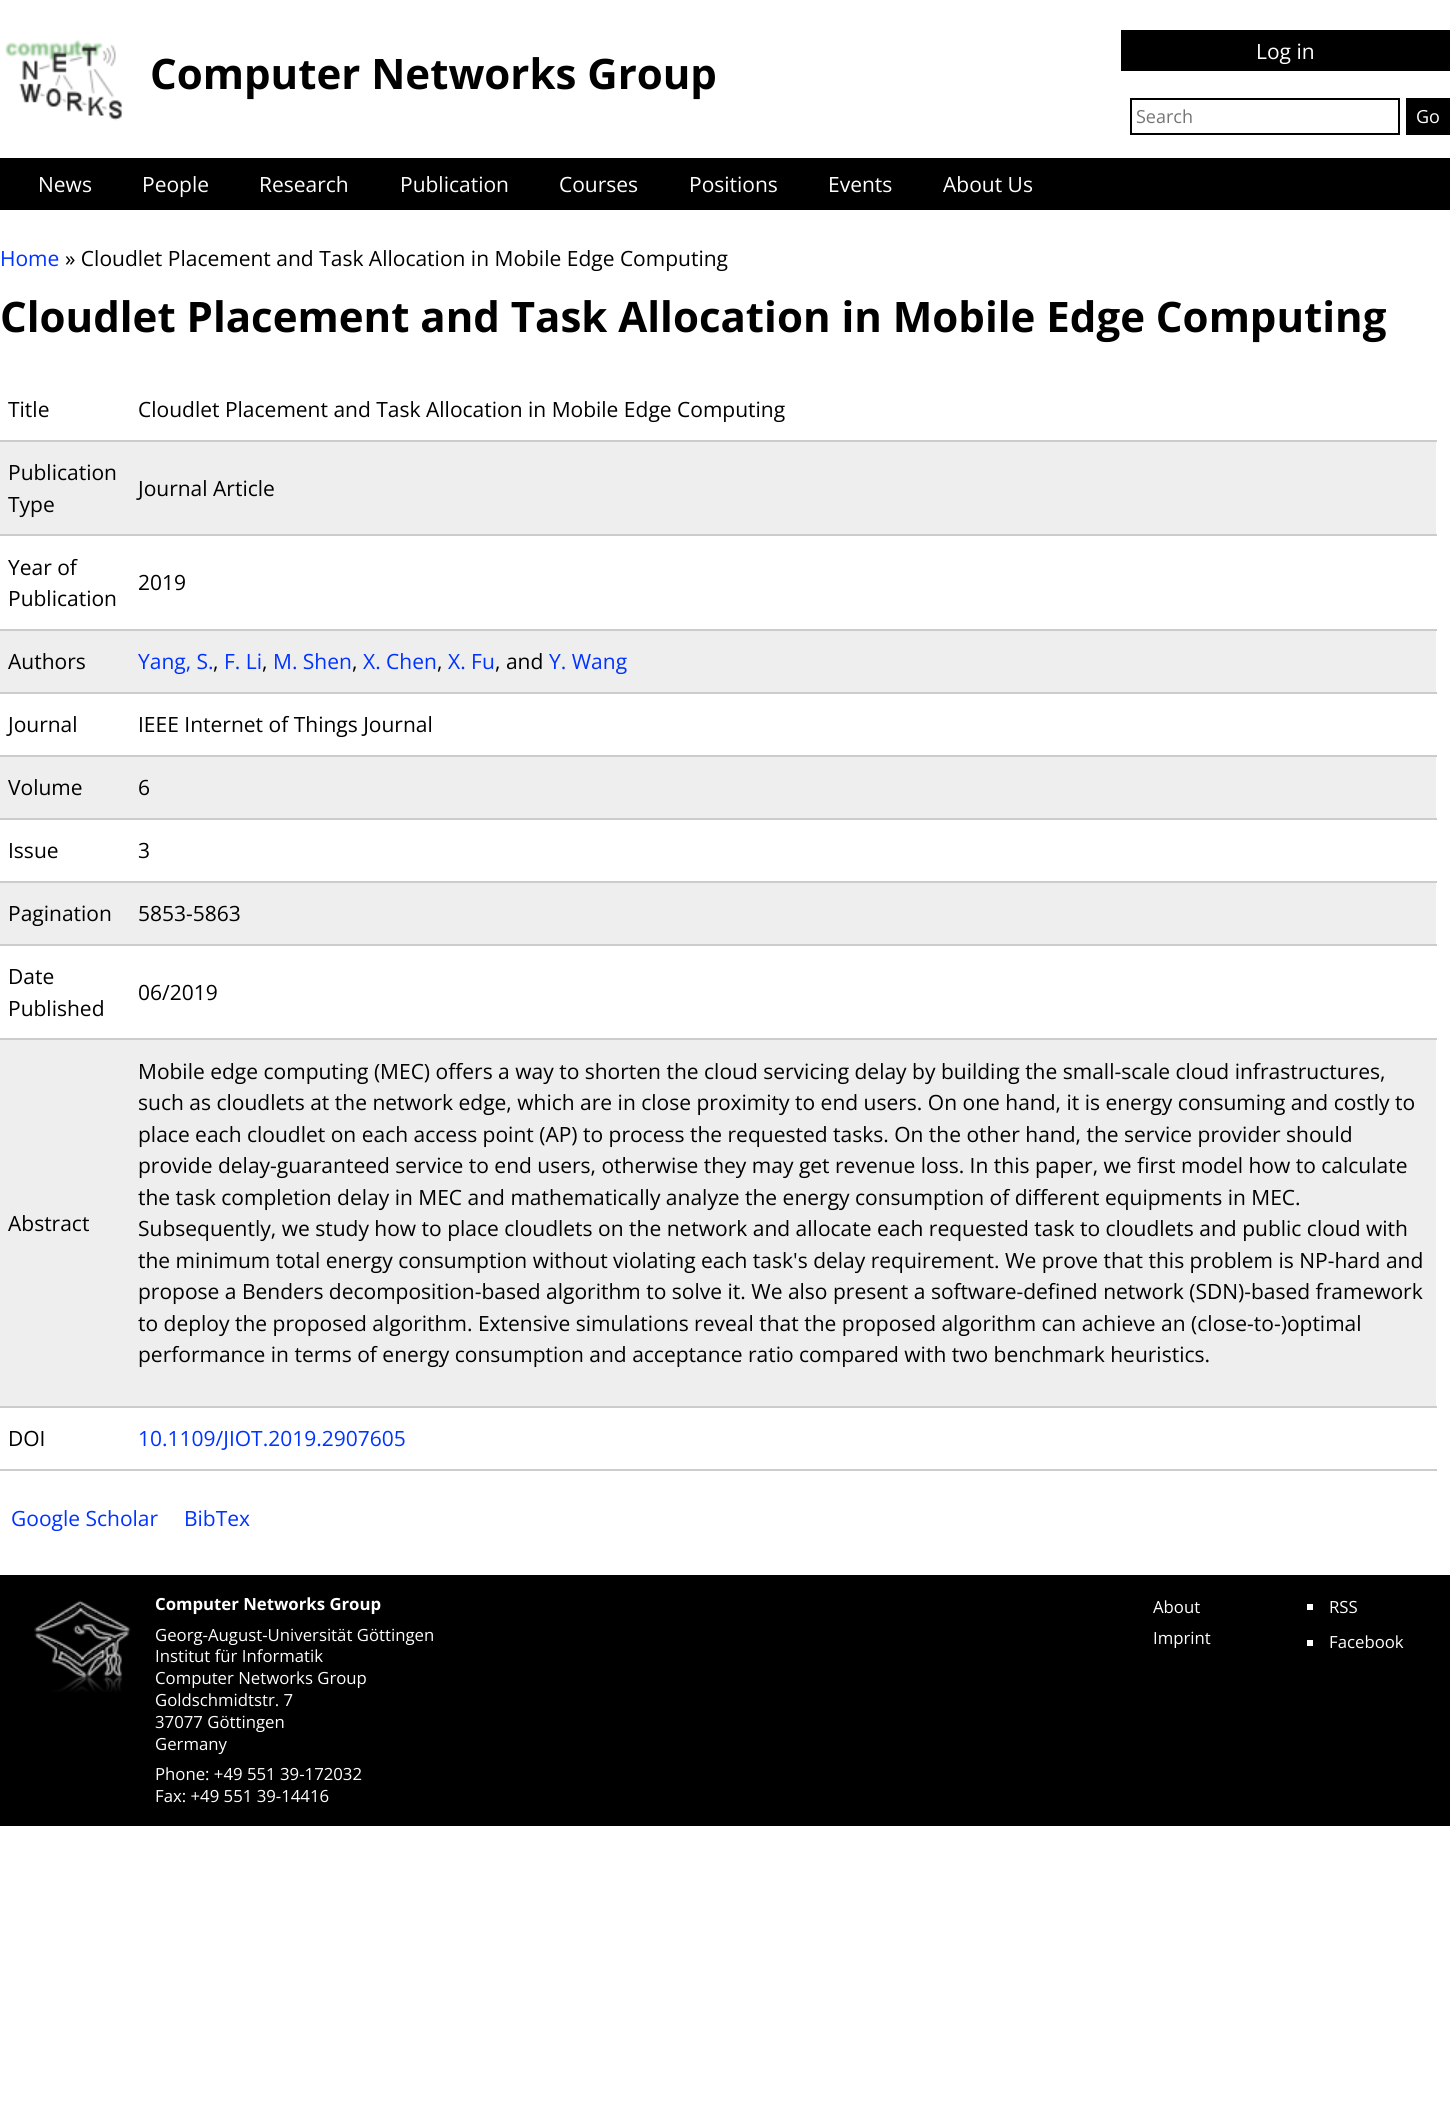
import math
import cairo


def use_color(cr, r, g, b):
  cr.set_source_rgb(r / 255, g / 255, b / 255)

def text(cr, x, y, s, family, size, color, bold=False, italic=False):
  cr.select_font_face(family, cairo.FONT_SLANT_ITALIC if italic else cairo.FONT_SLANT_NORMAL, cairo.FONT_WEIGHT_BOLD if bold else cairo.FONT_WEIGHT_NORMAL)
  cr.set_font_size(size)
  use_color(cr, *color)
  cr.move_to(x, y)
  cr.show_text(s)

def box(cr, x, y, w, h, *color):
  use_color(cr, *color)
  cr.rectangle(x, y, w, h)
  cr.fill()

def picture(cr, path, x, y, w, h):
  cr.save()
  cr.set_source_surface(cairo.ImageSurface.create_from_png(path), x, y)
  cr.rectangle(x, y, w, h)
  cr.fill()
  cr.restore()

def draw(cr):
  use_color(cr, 255, 255, 255)
  cr.paint()
  box(cr, 1121, 30, 329, 41, 0, 0, 0)
  cr.rectangle(1131, 99, 268, 35)
  cr.stroke()
  box(cr, 1406, 98, 44, 37, 0, 0, 0)
  box(cr, 0, 158, 1450, 52, 0, 0, 0)
  picture(cr, "img_01.png", 5, 40, 118, 81)
  box(cr, 0, 440, 1437, 2, 204, 204, 204)
  box(cr, 0, 442, 1436, 92, 238, 238, 238)
  box(cr, 0, 534, 1437, 2, 204, 204, 204)
  box(cr, 0, 629, 1437, 2, 204, 204, 204)
  box(cr, 0, 631, 1436, 61, 238, 238, 238)
  box(cr, 0, 692, 1437, 2, 204, 204, 204)
  box(cr, 0, 755, 1437, 2, 204, 204, 204)
  box(cr, 0, 757, 1436, 61, 238, 238, 238)
  box(cr, 0, 818, 1437, 2, 204, 204, 204)
  box(cr, 0, 881, 1437, 2, 204, 204, 204)
  box(cr, 0, 883, 1436, 61, 238, 238, 238)
  box(cr, 0, 944, 1437, 2, 204, 204, 204)
  box(cr, 0, 1038, 1437, 2, 204, 204, 204)
  box(cr, 0, 1040, 1436, 366, 238, 238, 238)
  box(cr, 0, 1406, 1437, 2, 204, 204, 204)
  box(cr, 0, 1469, 1437, 2, 204, 204, 204)
  box(cr, 0, 1575, 1450, 251, 0, 0, 0)
  picture(cr, "img_02.png", 34, 1600, 97, 92)
  box(cr, 1307, 1604, 6, 6, 255, 255, 255)
  box(cr, 1307, 1640, 6, 6, 255, 255, 255)
  text(cr, 1256, 59, "Log in", "Open Sans", 21, (255, 255, 255))
  text(cr, 1136, 123, "Search", "Open Sans", 18, (117, 117, 117))
  text(cr, 1416, 123, "Go", "Open Sans", 18, (255, 255, 255))
  text(cr, 38, 192, "News", "Open Sans", 21, (255, 255, 255))
  text(cr, 142, 192, "People", "Open Sans", 21, (255, 255, 255))
  text(cr, 259, 192, "Research", "Open Sans", 21, (255, 255, 255))
  text(cr, 400, 192, "Publication", "Open Sans", 21, (255, 255, 255))
  text(cr, 559, 192, "Courses", "Open Sans", 21, (255, 255, 255))
  text(cr, 689, 192, "Positions", "Open Sans", 21, (255, 255, 255))
  text(cr, 828, 192, "Events", "Open Sans", 21, (255, 255, 255))
  text(cr, 943, 192, "About Us", "Open Sans", 21, (255, 255, 255))
  text(cr, 150, 89, "Computer Networks Group", "Open Sans", 42, (0, 0, 0), bold=True)
  text(cr, 0, 266, "Home", "Open Sans", 21, (0, 51, 255))
  text(cr, 65, 266, "» Cloudlet Placement and Task Allocation in Mobile Edge Computing", "Open Sans", 21, (0, 0, 0))
  text(cr, 0, 332, "Cloudlet Placement and Task Allocation in Mobile Edge Computing", "Open Sans", 42, (0, 0, 0), bold=True)
  text(cr, 8, 417, "Title", "Open Sans", 21, (0, 0, 0))
  text(cr, 138, 417, "Cloudlet Placement and Task Allocation in Mobile Edge Computing", "Open Sans", 21, (0, 0, 0))
  text(cr, 8, 480, "Publication", "Open Sans", 21, (0, 0, 0))
  text(cr, 8, 512, "Type", "Open Sans", 21, (0, 0, 0))
  text(cr, 138, 496, "Journal Article", "Open Sans", 21, (0, 0, 0))
  text(cr, 8, 575, "Year of", "Open Sans", 21, (0, 0, 0))
  text(cr, 8, 606, "Publication", "Open Sans", 21, (0, 0, 0))
  text(cr, 138, 590, "2019", "Open Sans", 21, (0, 0, 0))
  text(cr, 8, 669, "Authors", "Open Sans", 21, (0, 0, 0))
  text(cr, 138, 669, "Yang, S.", "Open Sans", 21, (0, 51, 255))
  text(cr, 213, 669, ",", "Open Sans", 21, (0, 0, 0))
  text(cr, 224, 669, "F. Li", "Open Sans", 21, (0, 51, 255))
  text(cr, 262, 669, ",", "Open Sans", 21, (0, 0, 0))
  text(cr, 273, 669, "M. Shen", "Open Sans", 21, (0, 51, 255))
  text(cr, 352, 669, ",", "Open Sans", 21, (0, 0, 0))
  text(cr, 363, 669, "X. Chen", "Open Sans", 21, (0, 51, 255))
  text(cr, 437, 669, ",", "Open Sans", 21, (0, 0, 0))
  text(cr, 448, 669, "X. Fu", "Open Sans", 21, (0, 51, 255))
  text(cr, 495, 669, ", and", "Open Sans", 21, (0, 0, 0))
  text(cr, 549, 669, "Y. Wang", "Open Sans", 21, (0, 51, 255))
  text(cr, 8, 732, "Journal", "Open Sans", 21, (0, 0, 0))
  text(cr, 138, 732, "IEEE Internet of Things Journal", "Open Sans", 21, (0, 0, 0))
  text(cr, 8, 795, "Volume", "Open Sans", 21, (0, 0, 0))
  text(cr, 138, 795, "6", "Open Sans", 21, (0, 0, 0))
  text(cr, 8, 858, "Issue", "Open Sans", 21, (0, 0, 0))
  text(cr, 138, 858, "3", "Open Sans", 21, (0, 0, 0))
  text(cr, 8, 921, "Pagination", "Open Sans", 21, (0, 0, 0))
  text(cr, 138, 921, "5853-5863", "Open Sans", 21, (0, 0, 0))
  text(cr, 8, 984, "Date", "Open Sans", 21, (0, 0, 0))
  text(cr, 8, 1016, "Published", "Open Sans", 21, (0, 0, 0))
  text(cr, 138, 1000, "06/2019", "Open Sans", 21, (0, 0, 0))
  text(cr, 8, 1231, "Abstract", "Open Sans", 21, (0, 0, 0))
  text(cr, 138, 1079, "Mobile edge computing (MEC) offers a way to shorten the cloud servicing delay by building the small-scale cloud infrastructures,", "Open Sans", 21, (0, 0, 0))
  text(cr, 138, 1110, "such as cloudlets at the network edge, which are in close proximity to end users. On one hand, it is energy consuming and costly to", "Open Sans", 21, (0, 0, 0))
  text(cr, 138, 1142, "place each cloudlet on each access point (AP) to process the requested tasks. On the other hand, the service provider should", "Open Sans", 21, (0, 0, 0))
  text(cr, 138, 1173, "provide delay-guaranteed service to end users, otherwise they may get revenue loss. In this paper, we first model how to calculate", "Open Sans", 21, (0, 0, 0))
  text(cr, 138, 1205, "the task completion delay in MEC and mathematically analyze the energy consumption of different equipments in MEC.", "Open Sans", 21, (0, 0, 0))
  text(cr, 138, 1236, "Subsequently, we study how to place cloudlets on the network and allocate each requested task to cloudlets and public cloud with", "Open Sans", 21, (0, 0, 0))
  text(cr, 138, 1268, "the minimum total energy consumption without violating each task's delay requirement. We prove that this problem is NP-hard and", "Open Sans", 21, (0, 0, 0))
  text(cr, 138, 1299, "propose a Benders decomposition-based algorithm to solve it. We also present a software-defined network (SDN)-based framework", "Open Sans", 21, (0, 0, 0))
  text(cr, 138, 1331, "to deploy the proposed algorithm. Extensive simulations reveal that the proposed algorithm can achieve an (close-to-)optimal", "Open Sans", 21, (0, 0, 0))
  text(cr, 138, 1362, "performance in terms of energy consumption and acceptance ratio compared with two benchmark heuristics.", "Open Sans", 21, (0, 0, 0))
  text(cr, 8, 1446, "DOI", "Open Sans", 21, (0, 0, 0))
  text(cr, 138, 1446, "10.1109/JIOT.2019.2907605", "Open Sans", 21, (0, 51, 255))
  text(cr, 11, 1526, "Google Scholar", "Open Sans", 21, (0, 51, 255))
  text(cr, 184, 1526, "BibTex", "Open Sans", 21, (0, 51, 255))
  text(cr, 155, 1610, "Computer Networks Group", "Open Sans", 16.75, (255, 255, 255), bold=True)
  text(cr, 155, 1641, "Georg-August-Universität Göttingen", "Open Sans", 16.75, (255, 255, 255))
  text(cr, 155, 1662, "Institut für Informatik", "Open Sans", 16.75, (255, 255, 255))
  text(cr, 155, 1684, "Computer Networks Group", "Open Sans", 16.75, (255, 255, 255))
  text(cr, 155, 1706, "Goldschmidtstr. 7", "Open Sans", 16.75, (255, 255, 255))
  text(cr, 155, 1728, "37077 Göttingen", "Open Sans", 16.75, (255, 255, 255))
  text(cr, 155, 1750, "Germany", "Open Sans", 16.75, (255, 255, 255))
  text(cr, 155, 1780, "Phone: +49 551 39-172032", "Open Sans", 16.75, (255, 255, 255))
  text(cr, 155, 1802, "Fax: +49 551 39-14416", "Open Sans", 16.75, (255, 255, 255))
  text(cr, 1153, 1613, "About", "Open Sans", 16.75, (255, 255, 255))
  text(cr, 1153, 1644, "Imprint", "Open Sans", 16.75, (255, 255, 255))
  text(cr, 1329, 1613, "RSS", "Open Sans", 16.75, (255, 255, 255))
  text(cr, 1329, 1648, "Facebook", "Open Sans", 16.75, (255, 255, 255))


surface = cairo.ImageSurface(cairo.FORMAT_RGB24, 1450, 2121)
cr = cairo.Context(surface)
options = cairo.FontOptions()
options.set_hint_metrics(cairo.HINT_METRICS_OFF)
options.set_hint_style(cairo.HINT_STYLE_NONE)
cr.set_font_options(options)
cr.set_miter_limit(4)
draw(cr)
surface.write_to_png("out.png")
